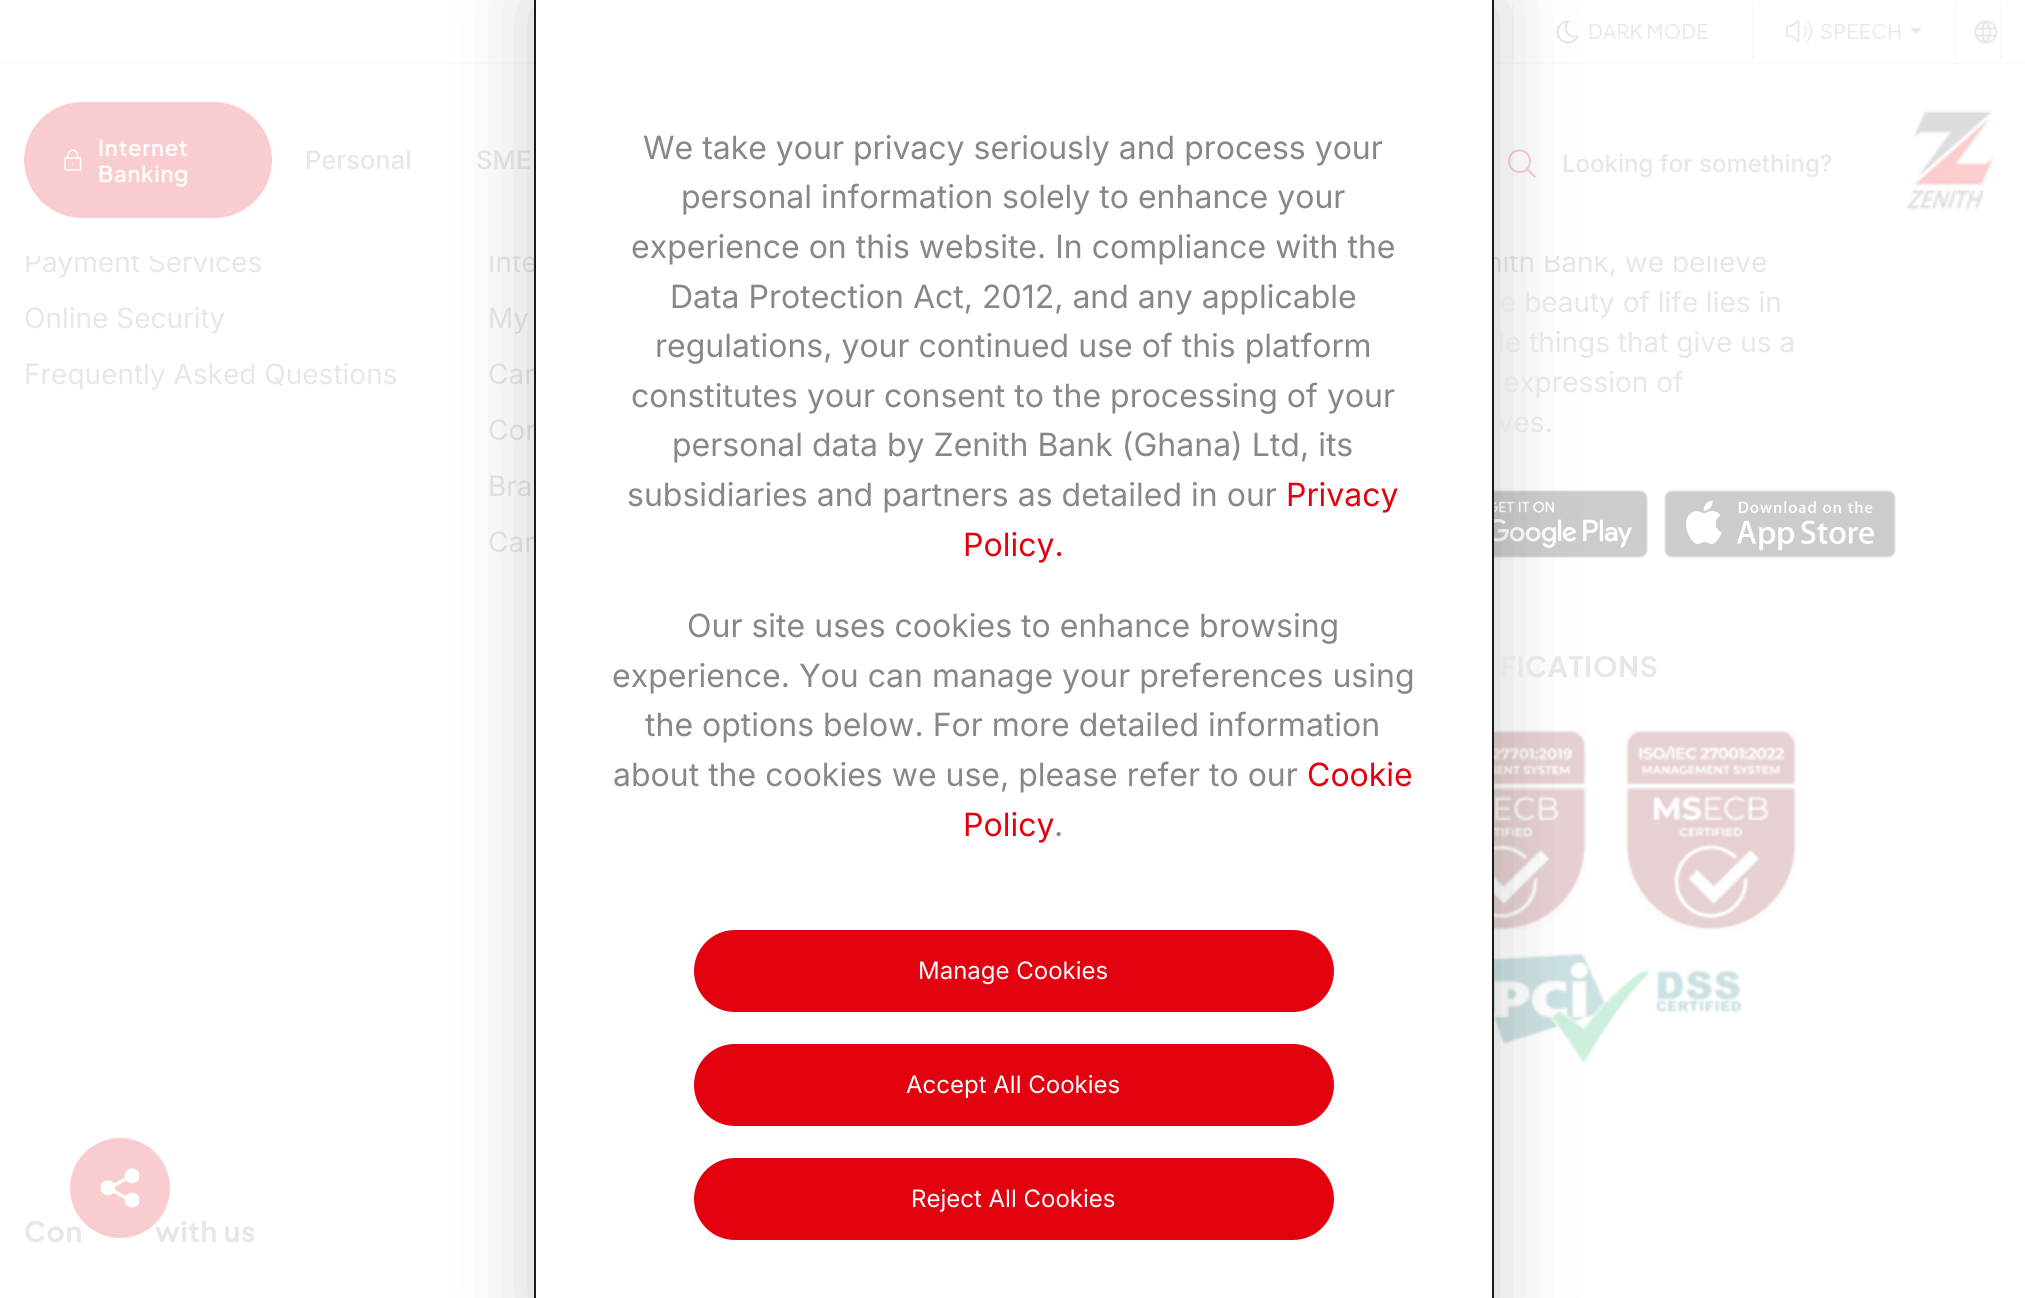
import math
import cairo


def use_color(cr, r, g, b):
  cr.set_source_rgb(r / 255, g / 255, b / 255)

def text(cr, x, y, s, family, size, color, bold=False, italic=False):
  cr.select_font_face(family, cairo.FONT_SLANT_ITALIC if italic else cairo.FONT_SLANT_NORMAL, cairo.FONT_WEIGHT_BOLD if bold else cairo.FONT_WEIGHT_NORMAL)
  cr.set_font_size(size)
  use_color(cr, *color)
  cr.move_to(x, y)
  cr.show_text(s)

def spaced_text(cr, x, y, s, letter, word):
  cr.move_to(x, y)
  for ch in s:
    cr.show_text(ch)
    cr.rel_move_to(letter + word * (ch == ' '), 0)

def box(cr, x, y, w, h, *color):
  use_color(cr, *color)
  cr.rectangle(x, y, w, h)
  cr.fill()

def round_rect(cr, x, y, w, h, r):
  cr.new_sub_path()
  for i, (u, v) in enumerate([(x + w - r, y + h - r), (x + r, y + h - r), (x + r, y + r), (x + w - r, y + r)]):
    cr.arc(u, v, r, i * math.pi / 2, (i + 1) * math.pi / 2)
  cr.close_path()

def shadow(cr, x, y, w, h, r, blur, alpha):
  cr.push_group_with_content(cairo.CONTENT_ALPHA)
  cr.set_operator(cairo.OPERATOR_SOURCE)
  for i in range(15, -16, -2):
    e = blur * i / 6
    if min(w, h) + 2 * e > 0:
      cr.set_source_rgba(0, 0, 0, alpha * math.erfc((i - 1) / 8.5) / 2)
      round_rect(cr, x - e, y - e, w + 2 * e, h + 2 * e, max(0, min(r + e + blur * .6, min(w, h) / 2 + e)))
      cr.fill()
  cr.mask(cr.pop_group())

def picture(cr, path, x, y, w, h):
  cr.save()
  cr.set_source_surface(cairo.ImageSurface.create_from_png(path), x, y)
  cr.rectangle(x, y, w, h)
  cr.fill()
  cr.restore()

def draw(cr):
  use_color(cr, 255, 255, 255)
  cr.paint()
  box(cr, 0, 62, 2025, 2, 251, 251, 251)
  box(cr, 1512, 4, 2, 56, 251, 251, 251)
  box(cr, 1752, 4, 2, 56, 251, 251, 251)
  picture(cr, "img_01.png", 1556, 20, 23, 24)
  box(cr, 1954, 4, 2, 56, 251, 251, 251)
  picture(cr, "img_02.png", 1786, 19, 26, 24)
  use_color(cr, 231, 231, 231)
  cr.new_path()
  cr.move_to(1910, 28)
  cr.line_to(1922, 28)
  cr.line_to(1916, 34)
  cr.close_path()
  cr.fill()
  box(cr, 2000, 4, 2, 56, 251, 251, 251)
  picture(cr, "img_03.png", 1974, 20, 24, 24)
  use_color(cr, 249, 204, 207)
  round_rect(cr, 24, 102, 248, 116, 58)
  cr.fill()
  picture(cr, "img_04.png", 64, 149, 18, 22)
  cr.new_path()
  cr.move_to(1534.5, 176.5)
  cr.line_to(1527.5, 169.5)
  cr.move_to(1519.5, 172)
  cr.curve_to(1533.5, 172, 1533.5, 150.5, 1519.5, 150.5)
  cr.curve_to(1505.5, 150.5, 1505.5, 172, 1519.5, 172)
  cr.close_path()
  cr.set_line_cap(cairo.LINE_CAP_SQUARE)
  cr.stroke()
  picture(cr, "img_05.png", 1905, 109, 89, 102)
  picture(cr, "img_06.png", 1494, 490, 154, 68)
  picture(cr, "img_07.png", 1664, 490, 232, 68)
  picture(cr, "img_08.png", 1494, 730, 92, 200)
  picture(cr, "img_09.png", 1626, 730, 170, 200)
  picture(cr, "img_10.png", 1494, 952, 249, 113)
  cr.select_font_face("Plus Jakarta Sans")
  cr.set_font_size(20)
  use_color(cr, 231, 231, 231)
  spaced_text(cr, 1588, 39, "DARK MODE", 0.25, 0)
  spaced_text(cr, 1820, 39, "SPEECH", 0.25, 0)
  cr.select_font_face("Plus Jakarta Sans SemiBold")
  cr.set_font_size(22)
  use_color(cr, 255, 255, 255)
  spaced_text(cr, 98, 156, "Internet", 0.75, 0)
  spaced_text(cr, 98, 182, "Banking", 0.75, 0)
  text(cr, 305, 169, "Personal", "Inter Medium", 25.5, (231, 231, 231))
  text(cr, 476, 169, "SME", "Inter Medium", 25.5, (231, 231, 231))
  text(cr, 1562, 172, "Looking for something?", "Inter Medium", 24, (231, 231, 231))
  text(cr, 24, 272, "Payment Services", "Inter", 28, (231, 231, 231))
  text(cr, 24, 328, "Online Security", "Inter", 28, (231, 231, 231))
  text(cr, 24, 384, "Frequently Asked Questions", "Inter", 28, (231, 231, 231))
  text(cr, 488, 272, "Inte", "Inter", 28, (231, 231, 231))
  text(cr, 488, 328, "My", "Inter", 28, (231, 231, 231))
  text(cr, 488, 384, "Car", "Inter", 28, (231, 231, 231))
  text(cr, 488, 440, "Cor", "Inter", 28, (231, 231, 231))
  text(cr, 488, 496, "Bra", "Inter", 28, (231, 231, 231))
  text(cr, 488, 552, "Car", "Inter", 28, (231, 231, 231))
  text(cr, 1486, 272, "nith Bank, we believe", "Inter", 28, (231, 231, 231))
  box(cr, 26, 251, 1692, 5, 255, 255, 255)
  use_color(cr, 0, 0, 0)
  shadow(cr, 534, 0, 960, 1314, 0, 40, 0.2)
  text(cr, 1500, 312, "e beauty of life lies in", "Inter", 28, (231, 231, 231))
  text(cr, 1498, 352, "le things that give us a", "Inter", 28, (231, 231, 231))
  text(cr, 1503, 392, "expression of", "Inter", 28, (231, 231, 231))
  text(cr, 1491, 432, "lves.", "Inter", 28, (231, 231, 231))
  cr.select_font_face("Plus Jakarta Sans", cairo.FONT_SLANT_NORMAL, cairo.FONT_WEIGHT_BOLD)
  spaced_text(cr, 1491, 677, "IFICATIONS", 0.75, 0)
  use_color(cr, 255, 255, 255)
  cr.rectangle(535, -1, 958, 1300)
  cr.fill_preserve()
  use_color(cr, 27, 27, 27)
  cr.set_line_cap(cairo.LINE_CAP_BUTT)
  cr.stroke()
  use_color(cr, 227, 0, 15)
  round_rect(cr, 695, 1159, 638, 80, 40)
  cr.fill_preserve()
  cr.stroke()
  text(cr, 911, 1207, "Reject All Cookies", "Inter", 24, (255, 255, 255))
  use_color(cr, 227, 0, 15)
  round_rect(cr, 695, 1045, 638, 80, 40)
  cr.fill_preserve()
  cr.stroke()
  text(cr, 906, 1093, "Accept All Cookies", "Inter", 24, (255, 255, 255))
  use_color(cr, 227, 0, 15)
  round_rect(cr, 695, 931, 638, 80, 40)
  cr.fill_preserve()
  cr.stroke()
  text(cr, 918, 979, "Manage Cookies", "Inter", 24, (255, 255, 255))
  text(cr, 1054, 836, ".", "Inter", 32, (134, 135, 134))
  text(cr, 963, 836, "Policy", "Inter", 32, (227, 0, 15))
  text(cr, 1307, 786, "Cookie", "Inter", 32, (227, 0, 15))
  text(cr, 613, 786, "about the cookies we use, please refer to our", "Inter", 32, (134, 135, 134))
  text(cr, 645, 736, "the options below. For more detailed information", "Inter", 32, (134, 135, 134))
  text(cr, 612, 687, "experience. You can manage your preferences using", "Inter", 32, (134, 135, 134))
  text(cr, 687, 637, "Our site uses cookies to enhance browsing", "Inter", 32, (134, 135, 134))
  text(cr, 963, 556, "Policy.", "Inter", 32, (227, 0, 15))
  text(cr, 1286, 506, "Privacy", "Inter", 32, (227, 0, 15))
  text(cr, 627, 506, "subsidiaries and partners as detailed in our", "Inter", 32, (134, 135, 134))
  text(cr, 672, 456, "personal data by Zenith Bank (Ghana) Ltd, its", "Inter", 32, (134, 135, 134))
  text(cr, 631, 407, "constitutes your consent to the processing of your", "Inter", 32, (134, 135, 134))
  text(cr, 655, 357, "regulations, your continued use of this platform", "Inter", 32, (134, 135, 134))
  text(cr, 670, 308, "Data Protection Act, 2012, and any applicable", "Inter", 32, (134, 135, 134))
  text(cr, 631, 258, "experience on this website. In compliance with the", "Inter", 32, (134, 135, 134))
  text(cr, 681, 208, "personal information solely to enhance your", "Inter", 32, (134, 135, 134))
  text(cr, 643, 159, "We take your privacy seriously and process your", "Inter", 32, (134, 135, 134))
  cr.select_font_face("Plus Jakarta Sans", cairo.FONT_SLANT_NORMAL, cairo.FONT_WEIGHT_BOLD)
  cr.set_font_size(28)
  use_color(cr, 231, 231, 231)
  spaced_text(cr, 24, 1242, "Con", 0.75, 0)
  spaced_text(cr, 155, 1242, "with us", 0.75, 0)
  use_color(cr, 249, 204, 207)
  cr.new_path()
  cr.arc(120, 1188, 50, 0, 2 * math.pi)
  cr.fill()
  picture(cr, "img_11.png", 100, 1168, 40, 40)


surface = cairo.ImageSurface(cairo.FORMAT_RGB24, 2025, 1298)
cr = cairo.Context(surface)
options = cairo.FontOptions()
options.set_hint_metrics(cairo.HINT_METRICS_OFF)
options.set_hint_style(cairo.HINT_STYLE_NONE)
cr.set_font_options(options)
cr.set_miter_limit(4)
draw(cr)
surface.write_to_png("out.png")
